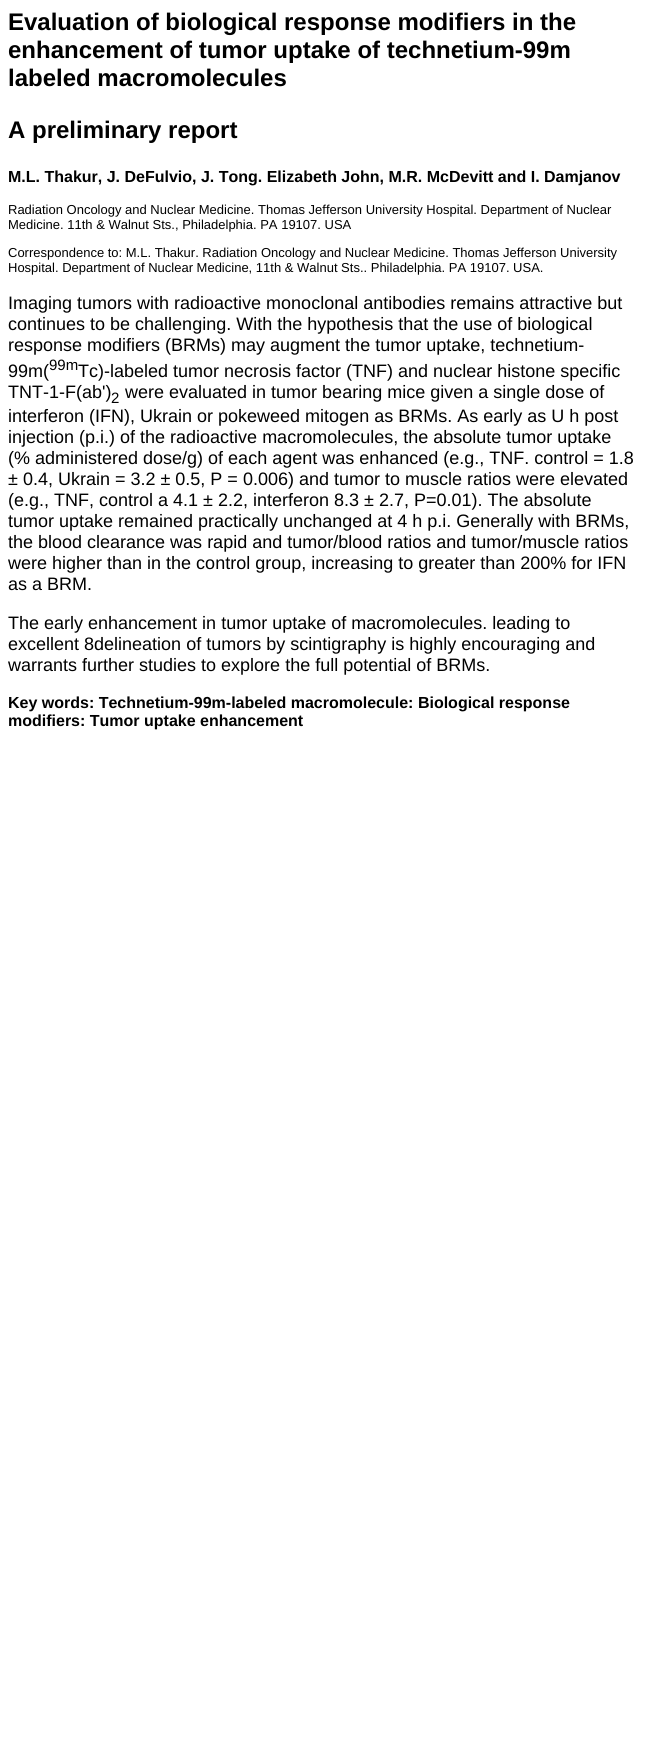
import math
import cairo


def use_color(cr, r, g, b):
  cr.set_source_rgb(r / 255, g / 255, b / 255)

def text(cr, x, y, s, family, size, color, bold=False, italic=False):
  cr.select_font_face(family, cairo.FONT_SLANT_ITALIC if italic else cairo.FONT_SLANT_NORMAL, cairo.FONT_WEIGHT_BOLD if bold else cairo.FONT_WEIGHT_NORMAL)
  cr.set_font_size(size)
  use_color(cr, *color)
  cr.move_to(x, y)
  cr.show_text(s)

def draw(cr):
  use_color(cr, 255, 255, 255)
  cr.paint()
  text(cr, 8, 30, "Evaluation of biological response modifiers in the", "Liberation Sans", 24, (0, 0, 0), bold=True)
  text(cr, 8, 58, "enhancement of tumor uptake of technetium-99m", "Liberation Sans", 24, (0, 0, 0), bold=True)
  text(cr, 8, 86, "labeled macromolecules", "Liberation Sans", 24, (0, 0, 0), bold=True)
  text(cr, 8, 138, "A preliminary report", "Liberation Sans", 24, (0, 0, 0), bold=True)
  text(cr, 8, 182, "M.L. Thakur, J. DeFulvio, J. Tong. Elizabeth John, M.R. McDevitt and I. Damjanov", "Liberation Sans", 16, (0, 0, 0), bold=True)
  text(cr, 8, 214, "Radiation Oncology and Nuclear Medicine. Thomas Jefferson University Hospital. Department of Nuclear", "Liberation Sans", 13, (0, 0, 0))
  text(cr, 8, 229, "Medicine. 11th & Walnut Sts., Philadelphia. PA 19107. USA", "Liberation Sans", 13, (0, 0, 0))
  text(cr, 8, 257, "Correspondence to: M.L. Thakur. Radiation Oncology and Nuclear Medicine. Thomas Jefferson University", "Liberation Sans", 13, (0, 0, 0))
  text(cr, 8, 272, "Hospital. Department of Nuclear Medicine, 11th & Walnut Sts.. Philadelphia. PA 19107. USA.", "Liberation Sans", 13, (0, 0, 0))
  text(cr, 8, 309, "Imaging tumors with radioactive monoclonal antibodies remains attractive but", "Liberation Sans", 18, (0, 0, 0))
  text(cr, 8, 330, "continues to be challenging. With the hypothesis that the use of biological", "Liberation Sans", 18, (0, 0, 0))
  text(cr, 8, 351, "response modifiers (BRMs) may augment the tumor uptake, technetium-", "Liberation Sans", 18, (0, 0, 0))
  text(cr, 8, 377, "99m(", "Liberation Sans", 18, (0, 0, 0))
  text(cr, 49, 370, "99m", "Liberation Sans", 15, (0, 0, 0))
  text(cr, 78, 377, "Tc)-labeled tumor necrosis factor (TNF) and nuclear histone specific", "Liberation Sans", 18, (0, 0, 0))
  text(cr, 8, 398, "TNT-1-F(ab')", "Liberation Sans", 18, (0, 0, 0))
  text(cr, 111, 403, "2", "Liberation Sans", 15, (0, 0, 0))
  text(cr, 125, 398, "were evaluated in tumor bearing mice given a single dose of", "Liberation Sans", 18, (0, 0, 0))
  text(cr, 8, 422, "interferon (IFN), Ukrain or pokeweed mitogen as BRMs. As early as U h post", "Liberation Sans", 18, (0, 0, 0))
  text(cr, 8, 443, "injection (p.i.) of the radioactive macromolecules, the absolute tumor uptake", "Liberation Sans", 18, (0, 0, 0))
  text(cr, 8, 464, "(% administered dose/g) of each agent was enhanced (e.g., TNF. control = 1.8", "Liberation Sans", 18, (0, 0, 0))
  text(cr, 8, 485, "± 0.4, Ukrain = 3.2 ± 0.5, P = 0.006) and tumor to muscle ratios were elevated", "Liberation Sans", 18, (0, 0, 0))
  text(cr, 8, 506, "(e.g., TNF, control a 4.1 ± 2.2, interferon 8.3 ± 2.7, P=0.01). The absolute", "Liberation Sans", 18, (0, 0, 0))
  text(cr, 8, 527, "tumor uptake remained practically unchanged at 4 h p.i. Generally with BRMs,", "Liberation Sans", 18, (0, 0, 0))
  text(cr, 8, 548, "the blood clearance was rapid and tumor/blood ratios and tumor/muscle ratios", "Liberation Sans", 18, (0, 0, 0))
  text(cr, 8, 569, "were higher than in the control group, increasing to greater than 200% for IFN", "Liberation Sans", 18, (0, 0, 0))
  text(cr, 8, 590, "as a BRM.", "Liberation Sans", 18, (0, 0, 0))
  text(cr, 8, 629, "The early enhancement in tumor uptake of macromolecules. leading to", "Liberation Sans", 18, (0, 0, 0))
  text(cr, 8, 650, "excellent 8delineation of tumors by scintigraphy is highly encouraging and", "Liberation Sans", 18, (0, 0, 0))
  text(cr, 8, 671, "warrants further studies to explore the full potential of BRMs.", "Liberation Sans", 18, (0, 0, 0))
  text(cr, 8, 708, "Key words: Technetium-99m-labeled macromolecule: Biological response", "Liberation Sans", 16, (0, 0, 0), bold=True)
  text(cr, 8, 726, "modifiers: Tumor uptake enhancement", "Liberation Sans", 16, (0, 0, 0), bold=True)


surface = cairo.ImageSurface(cairo.FORMAT_RGB24, 646, 1758)
cr = cairo.Context(surface)
options = cairo.FontOptions()
options.set_hint_metrics(cairo.HINT_METRICS_OFF)
options.set_hint_style(cairo.HINT_STYLE_NONE)
cr.set_font_options(options)
cr.set_miter_limit(4)
draw(cr)
surface.write_to_png("out.png")
